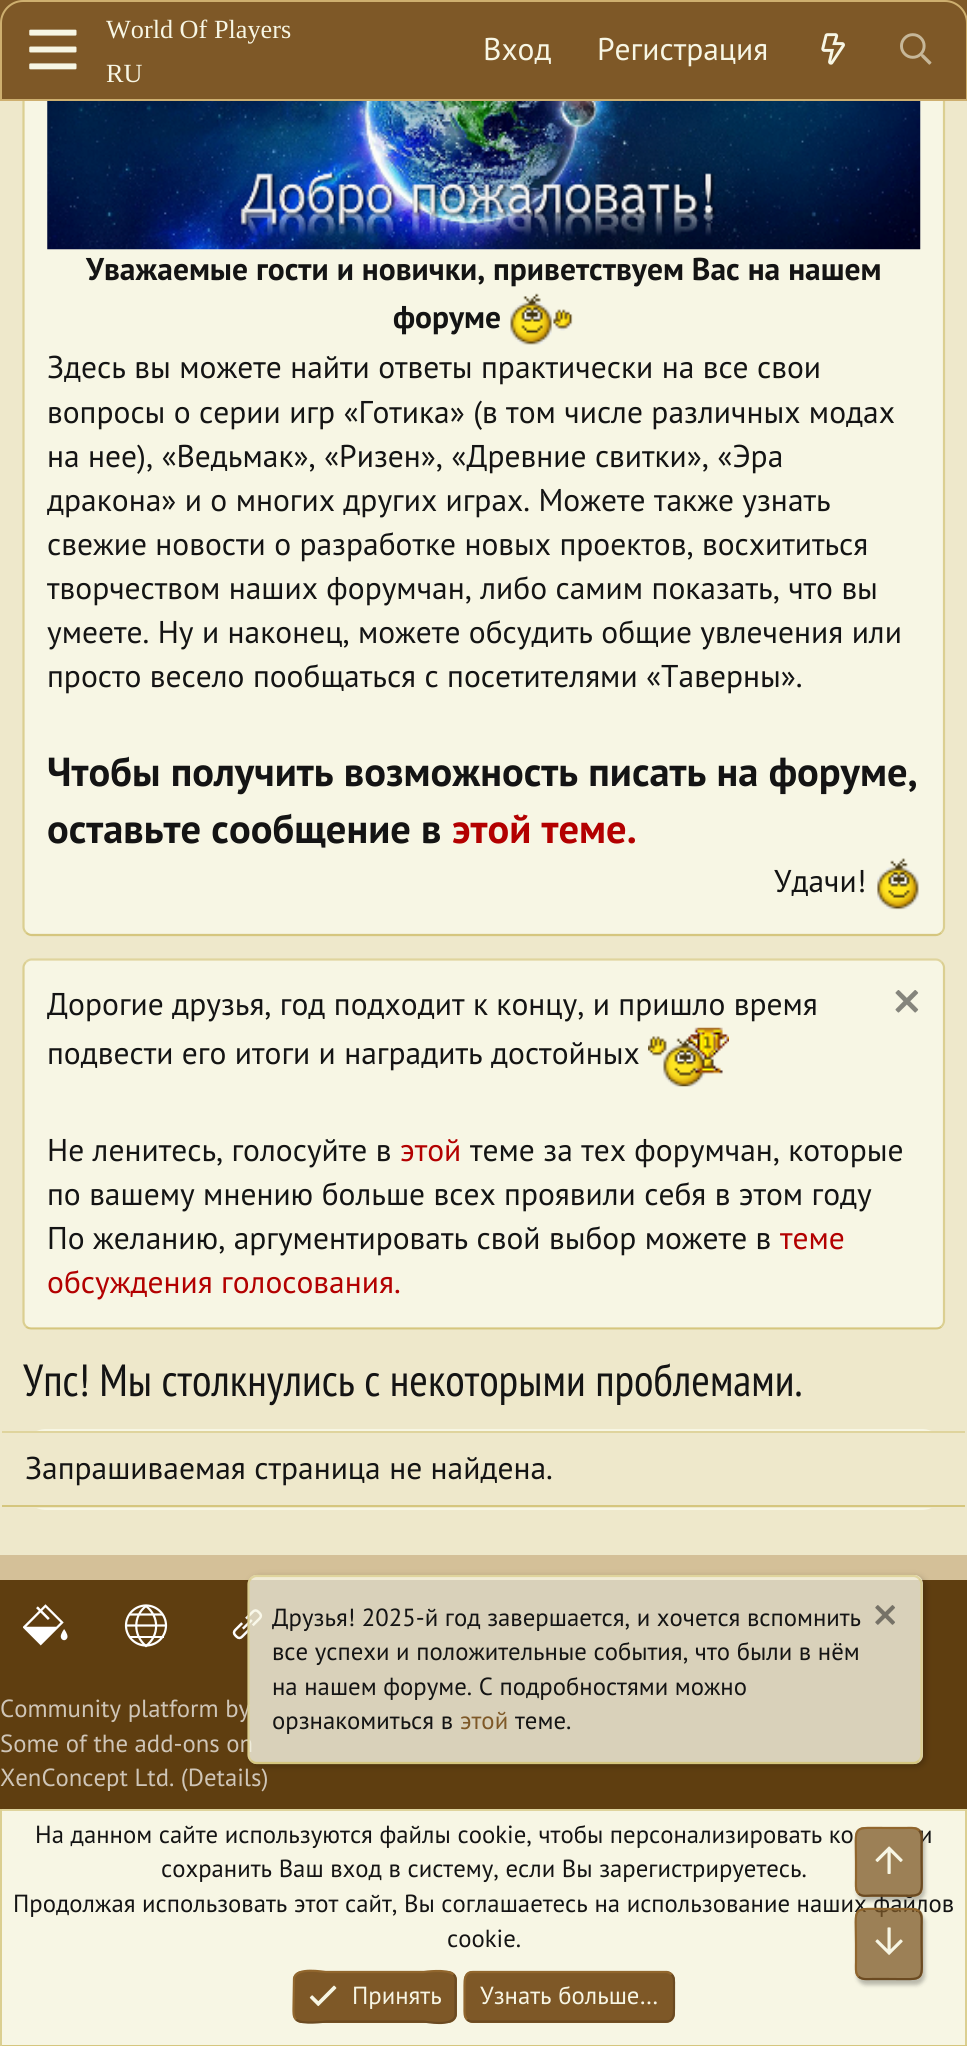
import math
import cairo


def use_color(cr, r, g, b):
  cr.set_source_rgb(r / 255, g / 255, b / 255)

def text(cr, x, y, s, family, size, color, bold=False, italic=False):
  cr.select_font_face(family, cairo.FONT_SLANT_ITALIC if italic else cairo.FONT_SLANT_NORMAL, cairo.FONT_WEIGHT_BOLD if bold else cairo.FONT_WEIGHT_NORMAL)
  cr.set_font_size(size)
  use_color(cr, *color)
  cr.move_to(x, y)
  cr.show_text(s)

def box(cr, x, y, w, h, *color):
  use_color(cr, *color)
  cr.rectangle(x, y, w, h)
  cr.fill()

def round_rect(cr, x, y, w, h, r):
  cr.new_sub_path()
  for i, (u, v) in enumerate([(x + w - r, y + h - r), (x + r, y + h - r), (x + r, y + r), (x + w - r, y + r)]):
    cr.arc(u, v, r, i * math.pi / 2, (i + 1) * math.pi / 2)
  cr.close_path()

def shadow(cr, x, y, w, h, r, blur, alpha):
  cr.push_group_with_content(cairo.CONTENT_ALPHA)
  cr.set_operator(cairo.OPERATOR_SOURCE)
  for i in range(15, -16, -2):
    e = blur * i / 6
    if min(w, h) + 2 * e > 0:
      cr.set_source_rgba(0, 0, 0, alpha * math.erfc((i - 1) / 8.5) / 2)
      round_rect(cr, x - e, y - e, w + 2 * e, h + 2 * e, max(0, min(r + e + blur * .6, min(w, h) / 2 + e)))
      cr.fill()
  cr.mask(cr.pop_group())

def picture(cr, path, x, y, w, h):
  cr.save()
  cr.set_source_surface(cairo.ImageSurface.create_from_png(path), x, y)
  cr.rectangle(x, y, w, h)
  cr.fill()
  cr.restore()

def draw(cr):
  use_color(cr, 212, 192, 152)
  cr.paint()
  box(cr, 0, 101, 967, 1454, 238, 232, 203)
  use_color(cr, 247, 246, 228)
  round_rect(cr, 23, -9, 922, 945, 9)
  cr.fill()
  cr.new_path()
  cr.move_to(941.5, -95.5)
  cr.curve_to(943, -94, 944, -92, 944, -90)
  cr.line_to(944, 927)
  cr.curve_to(944, 929, 943, 931, 941.5, 932.5)
  use_color(cr, 219, 207, 145)
  cr.set_line_width(2.2)
  cr.stroke()
  cr.new_path()
  cr.move_to(941.5, 932.5)
  cr.curve_to(940, 934, 938, 935, 936, 935)
  cr.line_to(31.5, 935)
  cr.curve_to(29.5, 935, 27.5, 934, 26, 932.5)
  use_color(cr, 213, 198, 126)
  cr.stroke()
  cr.new_path()
  cr.move_to(26, 932.5)
  cr.curve_to(24.5, 931, 23.5, 929, 23.5, 927)
  cr.line_to(23.5, -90)
  cr.curve_to(23.5, -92, 24.5, -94, 26, -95.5)
  use_color(cr, 219, 207, 145)
  cr.stroke()
  box(cr, 0, 0, 967, 99, 126, 88, 39)
  cr.new_path()
  cr.move_to(23, 1)
  cr.line_to(945, 1)
  cr.curve_to(957, 1, 967, 11, 967, 23)
  cr.line_to(967, 100)
  cr.line_to(1, 100)
  cr.line_to(1, 23)
  cr.curve_to(1, 11, 11, 1, 23, 1)
  cr.close_path()
  use_color(cr, 206, 175, 111)
  cr.set_line_width(2)
  cr.stroke()
  picture(cr, "img_01.png", 29, 29, 48, 41)
  picture(cr, "img_02.png", 821, 33, 24, 32)
  picture(cr, "img_03.png", 900, 33, 32, 32)
  picture(cr, "img_04.png", 47, 101, 874, 149)
  picture(cr, "img_05.png", 510, 293, 63, 52)
  picture(cr, "img_06.png", 877, 858, 42, 52)
  use_color(cr, 247, 246, 228)
  round_rect(cr, 23, 959, 922, 371, 9)
  cr.fill()
  cr.new_path()
  cr.move_to(26, 962)
  cr.curve_to(27.5, 960.5, 29.5, 959.5, 31.5, 959.5)
  cr.line_to(936, 959.5)
  cr.curve_to(938, 959.5, 940, 960.5, 941.5, 962)
  use_color(cr, 223, 212, 157)
  cr.set_line_width(2.2)
  cr.stroke()
  cr.new_path()
  cr.move_to(941.5, 962)
  cr.curve_to(943, 963.5, 944, 965.5, 944, 967.5)
  cr.line_to(944, 1321)
  cr.curve_to(944, 1323, 943, 1325, 941.5, 1326.5)
  use_color(cr, 219, 207, 145)
  cr.stroke()
  cr.new_path()
  cr.move_to(941.5, 1326.5)
  cr.curve_to(940, 1328, 938, 1328.5, 936, 1328.5)
  cr.line_to(31.5, 1328.5)
  cr.curve_to(29.5, 1328.5, 27.5, 1328, 26, 1326.5)
  use_color(cr, 213, 198, 126)
  cr.stroke()
  cr.new_path()
  cr.move_to(26, 1326.5)
  cr.curve_to(24.5, 1325, 23.5, 1323, 23.5, 1321)
  cr.line_to(23.5, 967.5)
  cr.curve_to(23.5, 965.5, 24.5, 963.5, 26, 962)
  use_color(cr, 219, 207, 145)
  cr.stroke()
  picture(cr, "img_07.png", 895, 990, 24, 23)
  picture(cr, "img_08.png", 648, 1027, 81, 60)
  round_rect(cr, 24, 1430, 920, 79, 22)
  use_color(cr, 247, 246, 228)
  cr.set_line_width(2)
  cr.stroke()
  box(cr, 23, 1433, 922, 75, 238, 232, 203)
  box(cr, 2, 1431, 963, 2, 223, 212, 157)
  box(cr, 2, 1505, 963, 2, 213, 198, 126)
  box(cr, 0, 1580, 967, 229, 95, 62, 16)
  picture(cr, "img_09.png", 23, 1604, 45, 42)
  cr.new_path()
  cr.move_to(126, 1625.5)
  cr.line_to(166.5, 1625.5)
  use_color(cr, 255, 255, 255)
  cr.set_line_width(2.2)
  cr.stroke()
  box(cr, 129, 1636, 35, 2, 255, 255, 255)
  cr.new_path()
  cr.move_to(129, 1614.5)
  cr.line_to(163, 1614.5)
  cr.move_to(146, 1646)
  cr.curve_to(133, 1635.5, 133, 1616, 146, 1606)
  cr.curve_to(159.5, 1616.5, 159.5, 1635.5, 146, 1646)
  cr.close_path()
  cr.stroke()
  cr.arc(146, 1625.5, 20, 0, 2 * math.pi)
  cr.stroke()
  picture(cr, "img_10.png", 232, 1609, 31, 31)
  cr.save()
  cr.set_fill_rule(cairo.FILL_RULE_EVEN_ODD)
  cr.new_path()
  cr.move_to(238, 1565)
  cr.line_to(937, 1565)
  cr.line_to(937, 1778)
  cr.line_to(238, 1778)
  cr.close_path()
  cr.move_to(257, 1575)
  cr.line_to(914, 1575)
  cr.curve_to(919, 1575, 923, 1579, 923, 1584)
  cr.line_to(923, 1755)
  cr.curve_to(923, 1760, 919, 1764, 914, 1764)
  cr.line_to(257, 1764)
  cr.curve_to(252, 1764, 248, 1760, 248, 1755)
  cr.line_to(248, 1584)
  cr.curve_to(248, 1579, 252, 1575, 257, 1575)
  cr.close_path()
  cr.clip()
  use_color(cr, 0, 0, 0)
  shadow(cr, 250, 1577, 675, 189, 9, 3.5, 0.25)
  cr.restore()
  box(cr, 2, 1811, 963, 234, 247, 246, 228)
  box(cr, 0, 1809, 967, 2, 223, 212, 157)
  box(cr, 965, 1809, 2, 237, 219, 207, 145)
  box(cr, 0, 2045, 967, 1, 213, 198, 126)
  box(cr, 0, 1809, 2, 237, 219, 207, 145)
  use_color(cr, 126, 88, 39)
  round_rect(cr, 293, 1971, 164, 52, 9)
  cr.fill()
  cr.new_path()
  cr.move_to(453.5, 1974.5)
  cr.curve_to(456.5, 1977.5, 455.5, 1981.5, 455.5, 1985.5)
  cr.line_to(455.5, 2015.5)
  cr.curve_to(453, 2027.5, 425.5, 2021.5, 423.5, 2021.5)
  cr.line_to(326, 2021.5)
  cr.curve_to(325.5, 2021.5, 301.5, 2025, 296, 2019.5)
  use_color(cr, 107, 74, 33)
  cr.stroke()
  cr.new_path()
  cr.move_to(296, 2019.5)
  cr.curve_to(293, 2016.5, 293.5, 2012, 293.5, 2008)
  cr.line_to(294, 1978.5)
  cr.curve_to(296, 1966.5, 323.5, 1972, 326, 1972)
  cr.line_to(423.5, 1972)
  cr.curve_to(424, 1972, 447.5, 1968.5, 453.5, 1974.5)
  use_color(cr, 145, 102, 45)
  cr.stroke()
  picture(cr, "img_12.png", 309, 1985, 28, 22)
  use_color(cr, 126, 88, 39)
  round_rect(cr, 464, 1971, 211, 52, 9)
  cr.fill()
  cr.new_path()
  cr.move_to(671.5, 1974.5)
  cr.curve_to(674.5, 1977.5, 674, 1981.5, 674, 1985.5)
  cr.line_to(674, 2008)
  cr.curve_to(674, 2014, 674, 2021.5, 666, 2021.5)
  cr.line_to(471.5, 2021.5)
  cr.curve_to(470, 2021.5, 468, 2020.5, 467, 2019.5)
  use_color(cr, 107, 74, 33)
  cr.stroke()
  cr.new_path()
  cr.move_to(467, 2019.5)
  cr.curve_to(464, 2016.5, 464.5, 2012, 464.5, 2008)
  cr.line_to(464.5, 1985.5)
  cr.curve_to(464.5, 1980, 464.5, 1972, 472.5, 1972)
  cr.line_to(667, 1972)
  cr.curve_to(668.5, 1972.5, 670.5, 1973, 671.5, 1974.5)
  use_color(cr, 145, 102, 45)
  cr.stroke()
  cr.save()
  cr.set_fill_rule(cairo.FILL_RULE_EVEN_ODD)
  cr.new_path()
  cr.move_to(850, 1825)
  cr.line_to(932, 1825)
  cr.line_to(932, 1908)
  cr.line_to(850, 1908)
  cr.close_path()
  cr.move_to(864, 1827)
  cr.line_to(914, 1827)
  cr.curve_to(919, 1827, 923, 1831, 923, 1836)
  cr.line_to(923, 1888)
  cr.curve_to(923, 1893, 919, 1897, 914, 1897)
  cr.line_to(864, 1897)
  cr.curve_to(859, 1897, 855, 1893, 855, 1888)
  cr.line_to(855, 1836)
  cr.curve_to(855, 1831, 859, 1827, 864, 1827)
  cr.close_path()
  cr.clip()
  use_color(cr, 0, 0, 0)
  shadow(cr, 857, 1832, 68, 69, 9, 2, 0.25)
  cr.restore()
  cr.save()
  cr.set_fill_rule(cairo.FILL_RULE_EVEN_ODD)
  cr.new_path()
  cr.move_to(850, 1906)
  cr.line_to(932, 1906)
  cr.line_to(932, 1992)
  cr.line_to(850, 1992)
  cr.close_path()
  cr.move_to(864, 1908)
  cr.line_to(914, 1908)
  cr.curve_to(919, 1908, 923, 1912, 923, 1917)
  cr.line_to(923, 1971)
  cr.curve_to(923, 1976, 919, 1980, 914, 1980)
  cr.line_to(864, 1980)
  cr.curve_to(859, 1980, 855, 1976, 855, 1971)
  cr.line_to(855, 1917)
  cr.curve_to(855, 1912, 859, 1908, 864, 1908)
  cr.close_path()
  cr.clip()
  use_color(cr, 0, 0, 0)
  shadow(cr, 857, 1913, 68, 72, 9, 2, 0.25)
  cr.restore()
  text(cr, 106, 38, "World Of Players", "Liberation Serif", 26.25, (247, 246, 228))
  text(cr, 106, 82, "RU", "Liberation Serif", 26.25, (247, 246, 228))
  text(cr, 483, 60, "Вход", "PT Sans", 31.5, (247, 246, 228))
  text(cr, 597, 60, "Регистрация", "PT Sans", 31.5, (247, 246, 228))
  text(cr, 86, 280, "Уважаемые гости и новички, приветствуем Вас на нашем", "PT Sans", 31.5, (20, 20, 20), bold=True)
  text(cr, 393, 328, "форуме", "PT Sans", 31.5, (20, 20, 20), bold=True)
  text(cr, 47, 378, "Здесь вы можете найти ответы практически на все свои", "PT Sans", 31.5, (20, 20, 20))
  text(cr, 47, 423, "вопросы о серии игр «Готика» (в том числе различных модах", "PT Sans", 31.5, (20, 20, 20))
  text(cr, 47, 467, "на нее), «Ведьмак», «Ризен», «Древние свитки», «Эра", "PT Sans", 31.5, (20, 20, 20))
  text(cr, 47, 511, "дракона» и о многих других играх. Можете также узнать", "PT Sans", 31.5, (20, 20, 20))
  text(cr, 47, 555, "свежие новости о разработке новых проектов, восхититься", "PT Sans", 31.5, (20, 20, 20))
  text(cr, 47, 599, "творчеством наших форумчан, либо самим показать, что вы", "PT Sans", 31.5, (20, 20, 20))
  text(cr, 47, 643, "умеете. Ну и наконец, можете обсудить общие увлечения или", "PT Sans", 31.5, (20, 20, 20))
  text(cr, 47, 687, "просто весело пообщаться с посетителями «Таверны».", "PT Sans", 31.5, (20, 20, 20))
  text(cr, 47, 786, "Чтобы получить возможность писать на форуме,", "PT Sans", 40.5, (20, 20, 20), bold=True)
  text(cr, 47, 843, "оставьте сообщение в", "PT Sans", 40.5, (20, 20, 20), bold=True)
  text(cr, 452, 843, "этой теме.", "PT Sans", 40.5, (179, 0, 0), bold=True)
  text(cr, 774, 892, "Удачи!", "PT Sans", 31.5, (20, 20, 20))
  text(cr, 47, 1015, "Дорогие друзья, год подходит к концу, и пришло время", "PT Sans", 31.5, (20, 20, 20))
  text(cr, 47, 1064, "подвести его итоги и наградить достойных", "PT Sans", 31.5, (20, 20, 20))
  text(cr, 47, 1161, "Не ленитесь, голосуйте в", "PT Sans", 31.5, (20, 20, 20))
  text(cr, 400, 1161, "этой", "PT Sans", 31.5, (179, 0, 0))
  text(cr, 470, 1161, "теме за тех форумчан, которые", "PT Sans", 31.5, (20, 20, 20))
  text(cr, 47, 1205, "по вашему мнению больше всех проявили себя в этом году", "PT Sans", 31.5, (20, 20, 20))
  text(cr, 47, 1249, "По желанию, аргументировать свой выбор можете в", "PT Sans", 31.5, (20, 20, 20))
  text(cr, 780, 1249, "теме", "PT Sans", 31.5, (179, 0, 0))
  text(cr, 47, 1293, "обсуждения голосования.", "PT Sans", 31.5, (179, 0, 0))
  text(cr, 23, 1396, "Упс! Мы столкнулись с некоторыми проблемами.", "PT Sans Narrow", 45, (20, 20, 20))
  text(cr, 25, 1479, "Запрашиваемая страница не найдена.", "PT Sans", 31.5, (20, 20, 20))
  text(cr, 0, 1717, "Community platform by", "PT Sans", 24.75, (207, 197, 183))
  text(cr, 0, 1752, "Some of the add-ons on", "PT Sans", 24.75, (207, 197, 183))
  text(cr, 0, 1786, "XenConcept Ltd. (Details)", "PT Sans", 24.75, (207, 197, 183))
  cr.set_source_rgba(0.969, 0.965, 0.894, 0.8)
  round_rect(cr, 248, 1575, 675, 189, 9)
  cr.fill()
  cr.new_path()
  cr.move_to(251, 1578.5)
  cr.curve_to(252.5, 1577, 254.5, 1576, 256.5, 1576)
  cr.line_to(913.5, 1576)
  cr.curve_to(915.5, 1576, 917.5, 1577, 919, 1578.5)
  use_color(cr, 223, 212, 157)
  cr.stroke()
  cr.new_path()
  cr.move_to(919, 1578.5)
  cr.curve_to(920.5, 1580, 921.5, 1582, 921.5, 1584)
  cr.line_to(921.5, 1755)
  cr.curve_to(921.5, 1757, 920.5, 1759, 919, 1760.5)
  use_color(cr, 219, 207, 145)
  cr.stroke()
  cr.new_path()
  cr.move_to(919, 1760.5)
  cr.curve_to(917.5, 1762, 915.5, 1763, 913.5, 1763)
  cr.line_to(256.5, 1763)
  cr.curve_to(254.5, 1763, 252.5, 1762, 251, 1760.5)
  use_color(cr, 213, 198, 126)
  cr.stroke()
  cr.new_path()
  cr.move_to(251, 1760.5)
  cr.curve_to(249.5, 1759, 248.5, 1757, 248.5, 1755)
  cr.line_to(248.5, 1584)
  cr.curve_to(248.5, 1582, 249.5, 1580, 251, 1578.5)
  use_color(cr, 219, 207, 145)
  cr.stroke()
  text(cr, 272, 1626, "Друзья! 2025-й год завершается, и хочется вспомнить", "PT Sans", 24.75, (20, 20, 20))
  picture(cr, "img_11.png", 875, 1605, 20, 20)
  text(cr, 272, 1660, "все успехи и положительные события, что были в нём", "PT Sans", 24.75, (20, 20, 20))
  text(cr, 272, 1695, "на нашем форуме. С подробностями можно", "PT Sans", 24.75, (20, 20, 20))
  text(cr, 272, 1729, "орзнакомиться в", "PT Sans", 24.75, (20, 20, 20))
  text(cr, 460, 1729, "этой", "PT Sans", 24.75, (126, 88, 39))
  text(cr, 515, 1729, "теме.", "PT Sans", 24.75, (20, 20, 20))
  text(cr, 35, 1843, "На данном сайте используются файлы cookie, чтобы персонализировать ко", "PT Sans", 24.75, (20, 20, 20))
  text(cr, 919, 1843, "и", "PT Sans", 24.75, (20, 20, 20))
  text(cr, 161, 1877, "сохранить Ваш вход в систему, если Вы зарегистрируетесь.", "PT Sans", 24.75, (20, 20, 20))
  text(cr, 13, 1912, "Продолжая использовать этот сайт, Вы соглашаетесь на использование наших файлов", "PT Sans", 24.75, (20, 20, 20))
  text(cr, 447, 1947, "cookie.", "PT Sans", 24.75, (20, 20, 20))
  text(cr, 352, 2004, "Принять", "PT Sans", 24.75, (247, 246, 228))
  text(cr, 480, 2004, "Узнать больше…", "PT Sans", 24.75, (247, 246, 228))
  cr.set_source_rgba(0.494, 0.345, 0.153, 0.75)
  round_rect(cr, 855, 1827, 68, 70, 9)
  cr.fill()
  cr.new_path()
  cr.move_to(919, 1830.5)
  cr.curve_to(922.5, 1834, 921.5, 1840.5, 921.5, 1844.5)
  cr.line_to(921.5, 1862)
  cr.curve_to(921.5, 1900.5, 927, 1895.5, 889, 1895.5)
  cr.line_to(872, 1895.5)
  cr.curve_to(868, 1895.5, 862, 1897, 858.5, 1893.5)
  use_color(cr, 107, 74, 33)
  cr.stroke()
  cr.new_path()
  cr.move_to(858.5, 1893.5)
  cr.curve_to(855, 1889.5, 856, 1883.5, 856, 1879)
  cr.line_to(856, 1862)
  cr.curve_to(856, 1823.5, 850.5, 1828, 889, 1828)
  cr.line_to(905, 1828)
  cr.curve_to(909.5, 1828, 915.5, 1827, 919, 1830.5)
  use_color(cr, 145, 102, 45)
  cr.stroke()
  picture(cr, "img_13.png", 875, 1846, 28, 28)
  cr.set_source_rgba(0.494, 0.345, 0.153, 0.75)
  round_rect(cr, 855, 1908, 68, 72, 9)
  cr.fill()
  cr.new_path()
  cr.move_to(919, 1911.5)
  cr.curve_to(922.5, 1915, 921.5, 1921.5, 921.5, 1926)
  cr.line_to(921.5, 1944)
  cr.curve_to(921.5, 1983.5, 927.5, 1979, 889, 1979)
  cr.line_to(872, 1979)
  cr.curve_to(868, 1979, 862, 1980, 858.5, 1976.5)
  use_color(cr, 107, 74, 33)
  cr.stroke()
  cr.new_path()
  cr.move_to(858.5, 1976.5)
  cr.curve_to(855, 1973, 856, 1966.5, 856, 1962)
  cr.line_to(856, 1944)
  cr.curve_to(856, 1904.5, 850, 1909, 889, 1909)
  cr.line_to(905, 1909)
  cr.curve_to(909.5, 1909, 915.5, 1908, 919, 1911.5)
  use_color(cr, 145, 102, 45)
  cr.stroke()
  picture(cr, "img_14.png", 875, 1927, 28, 28)


surface = cairo.ImageSurface(cairo.FORMAT_RGB24, 967, 2046)
cr = cairo.Context(surface)
options = cairo.FontOptions()
options.set_hint_metrics(cairo.HINT_METRICS_OFF)
options.set_hint_style(cairo.HINT_STYLE_NONE)
cr.set_font_options(options)
cr.set_miter_limit(4)
draw(cr)
surface.write_to_png("out.png")
